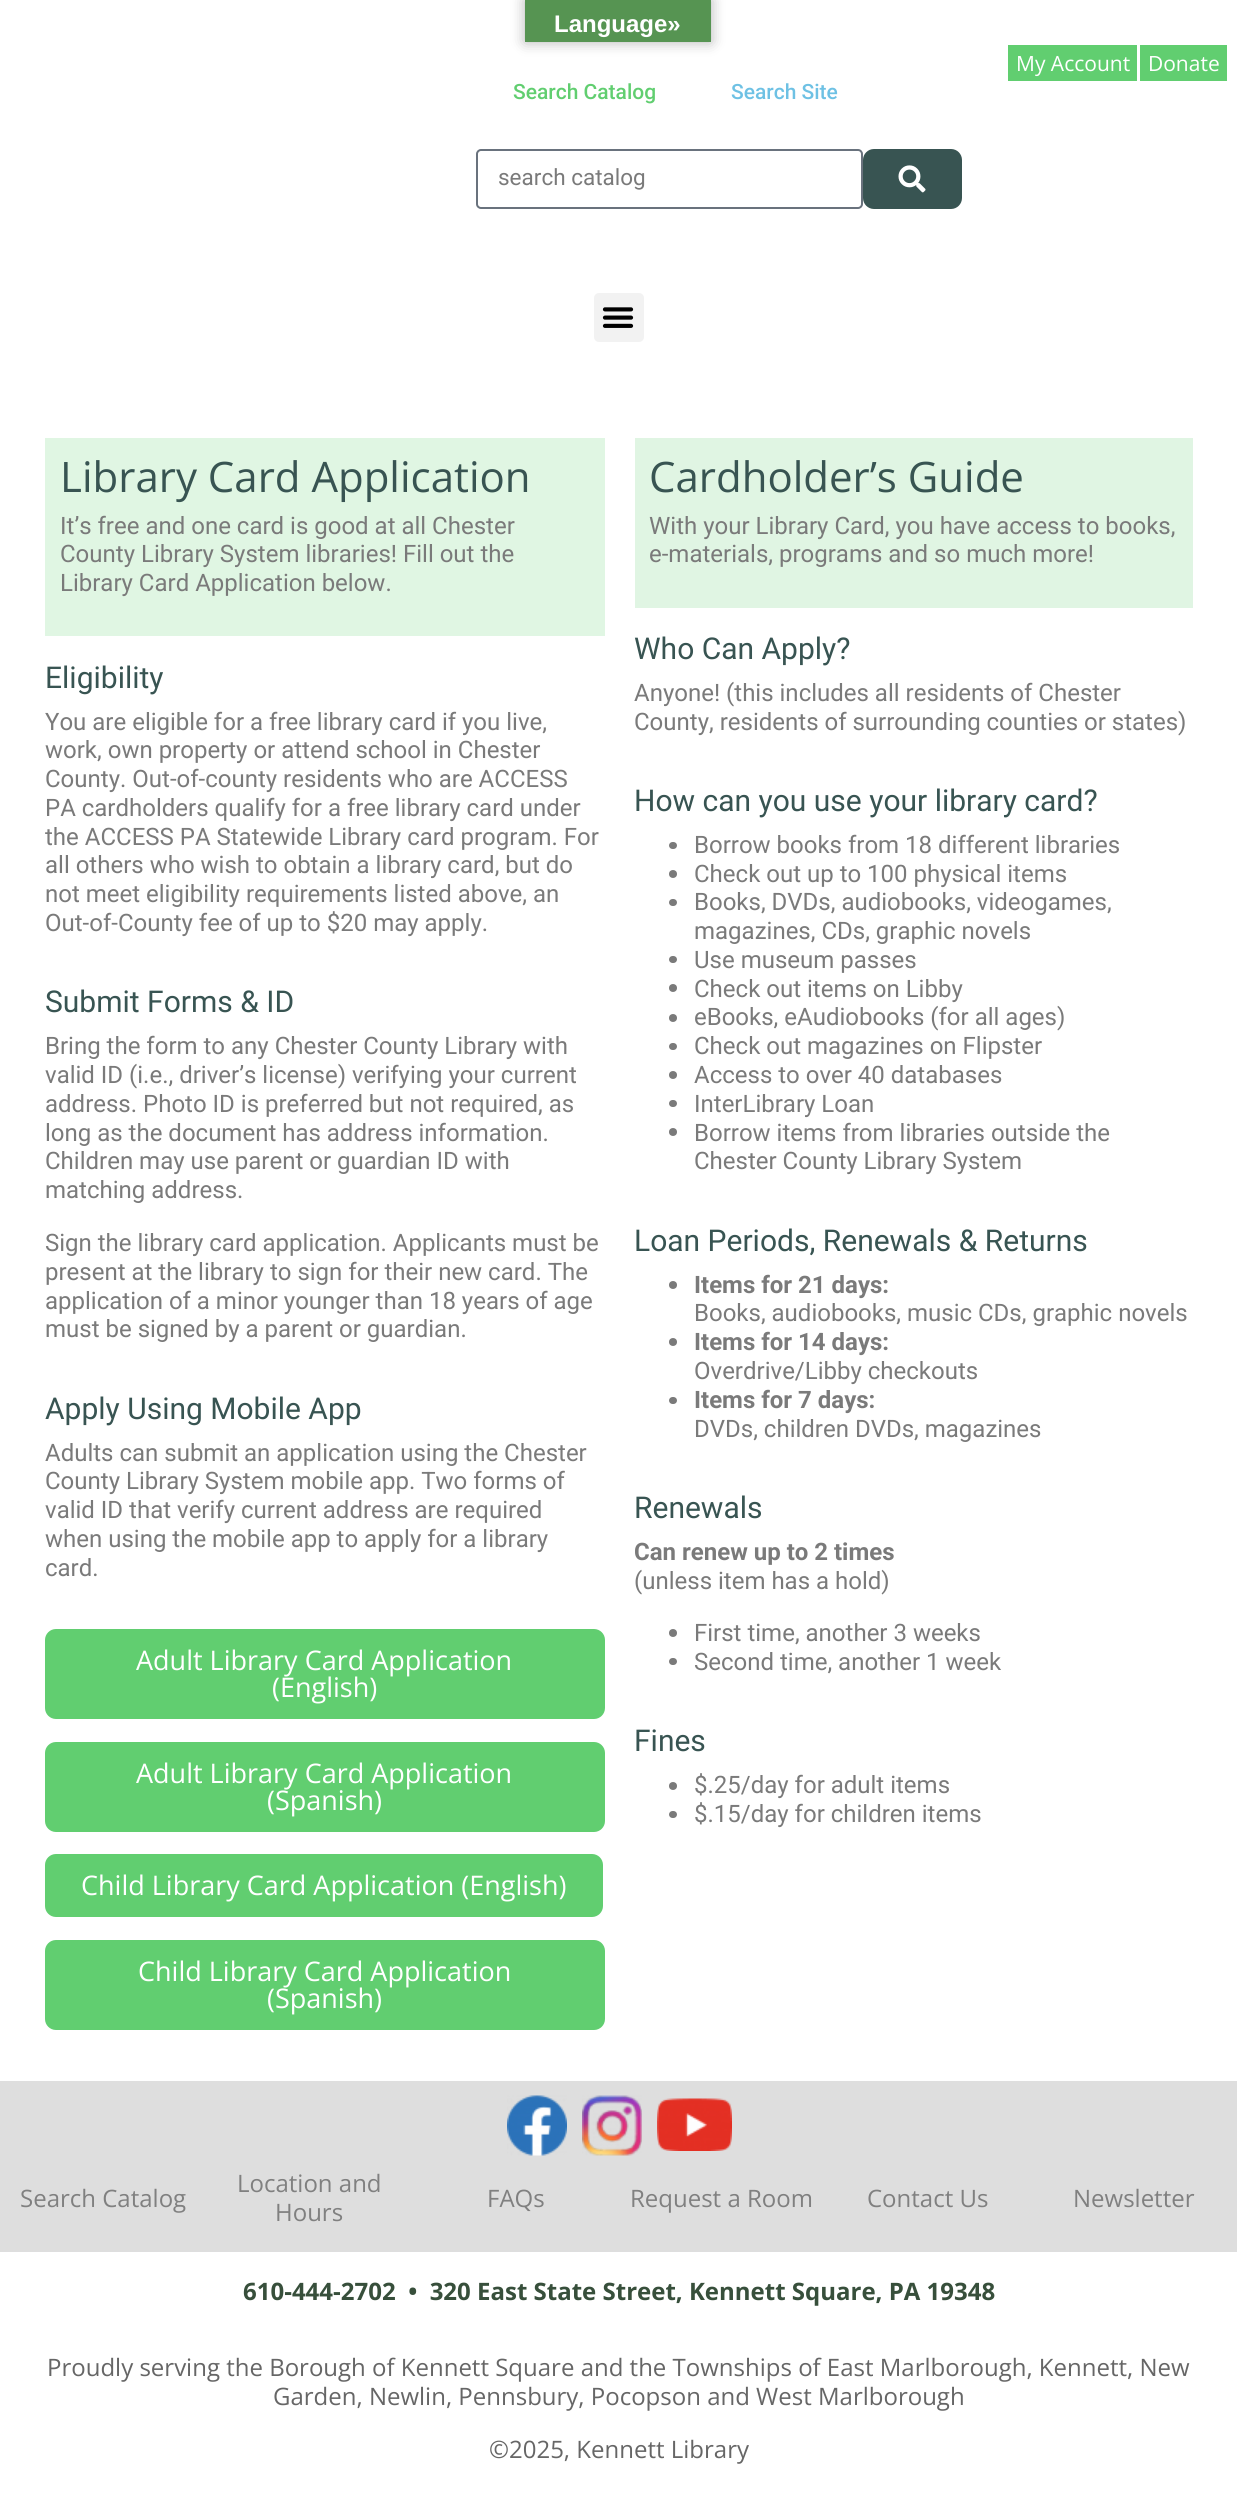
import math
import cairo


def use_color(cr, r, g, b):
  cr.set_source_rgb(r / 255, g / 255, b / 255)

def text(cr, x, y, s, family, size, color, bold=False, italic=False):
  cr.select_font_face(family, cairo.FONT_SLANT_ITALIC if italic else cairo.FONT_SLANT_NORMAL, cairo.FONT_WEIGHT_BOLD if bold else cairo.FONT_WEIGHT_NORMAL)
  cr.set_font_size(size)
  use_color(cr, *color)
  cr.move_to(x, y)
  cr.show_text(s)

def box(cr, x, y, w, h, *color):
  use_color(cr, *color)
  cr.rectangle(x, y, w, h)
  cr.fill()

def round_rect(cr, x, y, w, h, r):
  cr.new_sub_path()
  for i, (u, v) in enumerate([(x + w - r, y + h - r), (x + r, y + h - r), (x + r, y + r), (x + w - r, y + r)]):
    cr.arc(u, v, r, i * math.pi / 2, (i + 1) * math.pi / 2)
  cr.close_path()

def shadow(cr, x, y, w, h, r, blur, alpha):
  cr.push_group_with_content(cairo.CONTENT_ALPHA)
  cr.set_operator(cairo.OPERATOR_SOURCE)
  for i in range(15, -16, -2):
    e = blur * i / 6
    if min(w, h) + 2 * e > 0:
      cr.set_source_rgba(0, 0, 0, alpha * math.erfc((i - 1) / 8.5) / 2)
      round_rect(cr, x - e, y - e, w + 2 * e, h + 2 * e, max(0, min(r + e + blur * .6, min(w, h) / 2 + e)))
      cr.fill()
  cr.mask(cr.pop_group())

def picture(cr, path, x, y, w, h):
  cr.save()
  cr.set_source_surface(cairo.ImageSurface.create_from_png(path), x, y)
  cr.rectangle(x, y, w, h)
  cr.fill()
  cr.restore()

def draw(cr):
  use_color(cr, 255, 255, 255)
  cr.paint()
  use_color(cr, 0, 0, 0)
  shadow(cr, 525, 0, 186, 42, 0, 7, 0.3)
  box(cr, 525, 0, 186, 42, 86, 148, 82)
  box(cr, 1008, 45, 129, 36, 97, 206, 112)
  box(cr, 1140, 45, 87, 36, 97, 206, 112)
  round_rect(cr, 477, 150, 385, 58, 4)
  use_color(cr, 105, 114, 125)
  cr.stroke()
  use_color(cr, 56, 84, 82)
  round_rect(cr, 863, 149, 99, 60, 11)
  cr.fill()
  picture(cr, "img_01.png", 898, 165, 28, 28)
  use_color(cr, 242, 242, 242)
  round_rect(cr, 594, 293, 50, 49, 5)
  cr.fill()
  picture(cr, "img_02.png", 602, 307, 32, 21)
  box(cr, 45, 438, 560, 198, 224, 246, 227)
  use_color(cr, 97, 206, 112)
  round_rect(cr, 45, 1629, 560, 90, 11)
  cr.fill()
  round_rect(cr, 45, 1742, 560, 90, 11)
  cr.fill()
  round_rect(cr, 45, 1854, 558, 63, 11)
  cr.fill()
  round_rect(cr, 45, 1940, 560, 90, 11)
  cr.fill()
  box(cr, 635, 438, 558, 170, 224, 245, 227)
  use_color(cr, 122, 122, 122)
  round_rect(cr, 669, 842, 8, 7, 3.5)
  cr.fill()
  cr.arc(673, 874, 4, 0, 2 * math.pi)
  cr.fill()
  round_rect(cr, 669, 899, 8, 7, 3.5)
  cr.fill()
  round_rect(cr, 669, 956, 8, 7, 3.5)
  cr.fill()
  cr.arc(673, 988, 4, 0, 2 * math.pi)
  cr.fill()
  cr.arc(673, 1018, 4, 0, 2 * math.pi)
  cr.fill()
  round_rect(cr, 669, 1043, 8, 7, 3.5)
  cr.fill()
  cr.arc(673, 1075, 4, 0, 2 * math.pi)
  cr.fill()
  round_rect(cr, 669, 1100, 8, 7, 3.5)
  cr.fill()
  cr.arc(673, 1132, 4, 0, 2 * math.pi)
  cr.fill()
  cr.arc(673, 1285, 4, 0, 2 * math.pi)
  cr.fill()
  cr.arc(673, 1342, 4, 0, 2 * math.pi)
  cr.fill()
  round_rect(cr, 669, 1397, 8, 7, 3.5)
  cr.fill()
  cr.arc(673, 1633, 4, 0, 2 * math.pi)
  cr.fill()
  round_rect(cr, 669, 1658, 8, 7, 3.5)
  cr.fill()
  cr.arc(673, 1786, 4, 0, 2 * math.pi)
  cr.fill()
  round_rect(cr, 669, 1811, 8, 7, 3.5)
  cr.fill()
  box(cr, 0, 2081, 1237, 171, 222, 222, 222)
  picture(cr, "img_03.png", 507, 2095, 60, 61)
  picture(cr, "img_04.png", 582, 2095, 60, 61)
  picture(cr, "img_05.png", 657, 2098, 75, 53)
  text(cr, 554, 32, "Language»", "Liberation Sans", 24, (255, 255, 255), bold=True)
  text(cr, 1016, 71, "My Account", "Open Sans", 21, (255, 255, 255))
  text(cr, 1148, 71, "Donate", "Open Sans", 21, (255, 255, 255))
  text(cr, 513, 99, "Search Catalog", "Roboto Medium", 21, (97, 206, 112))
  text(cr, 731, 99, "Search Site", "Roboto Medium", 21, (110, 193, 228))
  text(cr, 498, 185, "search catalog", "Roboto", 22.5, (122, 122, 122))
  text(cr, 60, 492, "Library Card Application", "Open Sans", 42, (56, 84, 82))
  text(cr, 60, 534, "It’s free and one card is good at all Chester", "Roboto", 24, (122, 122, 122))
  text(cr, 60, 562, "County Library System libraries! Fill out the", "Roboto", 24, (122, 122, 122))
  text(cr, 60, 591, "Library Card Application below.", "Roboto", 24, (122, 122, 122))
  text(cr, 45, 688, "Eligibility", "Roboto", 30, (56, 84, 82))
  text(cr, 45, 730, "You are eligible for a free library card if you live,", "Roboto", 24, (122, 122, 122))
  text(cr, 45, 758, "work, own property or attend school in Chester", "Roboto", 24, (122, 122, 122))
  text(cr, 45, 787, "County. Out-of-county residents who are ACCESS", "Roboto", 24, (122, 122, 122))
  text(cr, 45, 816, "PA cardholders qualify for a free library card under", "Roboto", 24, (122, 122, 122))
  text(cr, 45, 845, "the ACCESS PA Statewide Library card program. For", "Roboto", 24, (122, 122, 122))
  text(cr, 45, 873, "all others who wish to obtain a library card, but do", "Roboto", 24, (122, 122, 122))
  text(cr, 45, 902, "not meet eligibility requirements listed above, an", "Roboto", 24, (122, 122, 122))
  text(cr, 45, 931, "Out-of-County fee of up to $20 may apply.", "Roboto", 24, (122, 122, 122))
  text(cr, 45, 1012, "Submit Forms & ID", "Roboto", 30, (56, 84, 82))
  text(cr, 45, 1054, "Bring the form to any Chester County Library with", "Roboto", 24, (122, 122, 122))
  text(cr, 45, 1083, "valid ID (i.e., driver’s license) verifying your current", "Roboto", 24, (122, 122, 122))
  text(cr, 45, 1112, "address. Photo ID is preferred but not required, as", "Roboto", 24, (122, 122, 122))
  text(cr, 45, 1141, "long as the document has address information.", "Roboto", 24, (122, 122, 122))
  text(cr, 45, 1169, "Children may use parent or guardian ID with", "Roboto", 24, (122, 122, 122))
  text(cr, 45, 1198, "matching address.", "Roboto", 24, (122, 122, 122))
  text(cr, 45, 1251, "Sign the library card application. Applicants must be", "Roboto", 24, (122, 122, 122))
  text(cr, 45, 1280, "present at the library to sign for their new card. The", "Roboto", 24, (122, 122, 122))
  text(cr, 45, 1309, "application of a minor younger than 18 years of age", "Roboto", 24, (122, 122, 122))
  text(cr, 45, 1337, "must be signed by a parent or guardian.", "Roboto", 24, (122, 122, 122))
  text(cr, 45, 1419, "Apply Using Mobile App", "Roboto", 30, (56, 84, 82))
  text(cr, 45, 1461, "Adults can submit an application using the Chester", "Roboto", 24, (122, 122, 122))
  text(cr, 45, 1489, "County Library System mobile app. Two forms of", "Roboto", 24, (122, 122, 122))
  text(cr, 45, 1518, "valid ID that verify current address are required", "Roboto", 24, (122, 122, 122))
  text(cr, 45, 1547, "when using the mobile app to apply for a library", "Roboto", 24, (122, 122, 122))
  text(cr, 45, 1576, "card.", "Roboto", 24, (122, 122, 122))
  text(cr, 136, 1670, "Adult Library Card Application", "Open Sans", 27, (255, 255, 255))
  text(cr, 272, 1697, "(English)", "Open Sans", 27, (255, 255, 255))
  text(cr, 136, 1783, "Adult Library Card Application", "Open Sans", 27, (255, 255, 255))
  text(cr, 267, 1810, "(Spanish)", "Open Sans", 27, (255, 255, 255))
  text(cr, 81, 1895, "Child Library Card Application (English)", "Open Sans", 27, (255, 255, 255))
  text(cr, 138, 1981, "Child Library Card Application", "Open Sans", 27, (255, 255, 255))
  text(cr, 267, 2008, "(Spanish)", "Open Sans", 27, (255, 255, 255))
  text(cr, 649, 492, "Cardholder’s Guide", "Open Sans", 42, (56, 84, 82))
  text(cr, 649, 534, "With your Library Card, you have access to books,", "Roboto", 24, (122, 122, 122))
  text(cr, 649, 562, "e-materials, programs and so much more!", "Roboto", 24, (122, 122, 122))
  text(cr, 634, 659, "Who Can Apply?", "Roboto", 30, (56, 84, 82))
  text(cr, 634, 701, "Anyone! (this includes all residents of Chester", "Roboto", 24, (122, 122, 122))
  text(cr, 634, 730, "County, residents of surrounding counties or states)", "Roboto", 24, (122, 122, 122))
  text(cr, 634, 811, "How can you use your library card?", "Roboto", 30, (56, 84, 82))
  text(cr, 694, 853, "Borrow books from 18 different libraries", "Roboto", 24, (122, 122, 122))
  text(cr, 694, 882, "Check out up to 100 physical items", "Roboto", 24, (122, 122, 122))
  text(cr, 694, 910, "Books, DVDs, audiobooks, videogames,", "Roboto", 24, (122, 122, 122))
  text(cr, 694, 939, "magazines, CDs, graphic novels", "Roboto", 24, (122, 122, 122))
  text(cr, 694, 968, "Use museum passes", "Roboto", 24, (122, 122, 122))
  text(cr, 694, 997, "Check out items on Libby", "Roboto", 24, (122, 122, 122))
  text(cr, 694, 1025, "eBooks, eAudiobooks (for all ages)", "Roboto", 24, (122, 122, 122))
  text(cr, 694, 1054, "Check out magazines on Flipster", "Roboto", 24, (122, 122, 122))
  text(cr, 694, 1083, "Access to over 40 databases", "Roboto", 24, (122, 122, 122))
  text(cr, 694, 1112, "InterLibrary Loan", "Roboto", 24, (122, 122, 122))
  text(cr, 694, 1141, "Borrow items from libraries outside the", "Roboto", 24, (122, 122, 122))
  text(cr, 694, 1169, "Chester County Library System", "Roboto", 24, (122, 122, 122))
  text(cr, 634, 1251, "Loan Periods, Renewals & Returns", "Roboto", 30, (56, 84, 82))
  text(cr, 694, 1293, "Items for 21 days:", "Roboto", 24, (122, 122, 122), bold=True)
  text(cr, 694, 1321, "Books, audiobooks, music CDs, graphic novels", "Roboto", 24, (122, 122, 122))
  text(cr, 694, 1350, "Items for 14 days:", "Roboto", 24, (122, 122, 122), bold=True)
  text(cr, 694, 1379, "Overdrive/Libby checkouts", "Roboto", 24, (122, 122, 122))
  text(cr, 694, 1408, "Items for 7 days:", "Roboto", 24, (122, 122, 122), bold=True)
  text(cr, 694, 1437, "DVDs, children DVDs, magazines", "Roboto", 24, (122, 122, 122))
  text(cr, 634, 1518, "Renewals", "Roboto", 30, (56, 84, 82))
  text(cr, 634, 1560, "Can renew up to 2 times", "Roboto", 24, (122, 122, 122), bold=True)
  text(cr, 634, 1589, "(unless item has a hold)", "Roboto", 24, (122, 122, 122))
  text(cr, 694, 1641, "First time, another 3 weeks", "Roboto", 24, (122, 122, 122))
  text(cr, 694, 1670, "Second time, another 1 week", "Roboto", 24, (122, 122, 122))
  text(cr, 634, 1751, "Fines", "Roboto", 30, (56, 84, 82))
  text(cr, 694, 1793, "$.25/day for adult items", "Roboto", 24, (122, 122, 122))
  text(cr, 694, 1822, "$.15/day for children items", "Roboto", 24, (122, 122, 122))
  text(cr, 20, 2207, "Search Catalog", "Open Sans", 24, (128, 128, 128))
  text(cr, 237, 2192, "Location and", "Open Sans", 24, (128, 128, 128))
  text(cr, 275, 2221, "Hours", "Open Sans", 24, (128, 128, 128))
  text(cr, 487, 2207, "FAQs", "Open Sans", 24, (128, 128, 128))
  text(cr, 630, 2207, "Request a Room", "Open Sans", 24, (128, 128, 128))
  text(cr, 867, 2207, "Contact Us", "Open Sans", 24, (128, 128, 128))
  text(cr, 1073, 2207, "Newsletter", "Open Sans", 24, (128, 128, 128))
  text(cr, 243, 2300, "610-444-2702  •  320 East State Street, Kennett Square, PA 19348", "Open Sans", 24, (55, 79, 59), bold=True)
  text(cr, 47, 2376, "Proudly serving the Borough of Kennett Square and the Townships of East Marlborough, Kennett, New", "Open Sans", 24, (102, 102, 102))
  text(cr, 273, 2405, "Garden, Newlin, Pennsbury, Pocopson and West Marlborough", "Open Sans", 24, (102, 102, 102))
  text(cr, 489, 2458, "©2025, Kennett Library", "Open Sans", 24, (102, 102, 102))


surface = cairo.ImageSurface(cairo.FORMAT_RGB24, 1237, 2511)
cr = cairo.Context(surface)
options = cairo.FontOptions()
options.set_hint_metrics(cairo.HINT_METRICS_OFF)
options.set_hint_style(cairo.HINT_STYLE_NONE)
cr.set_font_options(options)
cr.set_miter_limit(4)
draw(cr)
surface.write_to_png("out.png")
